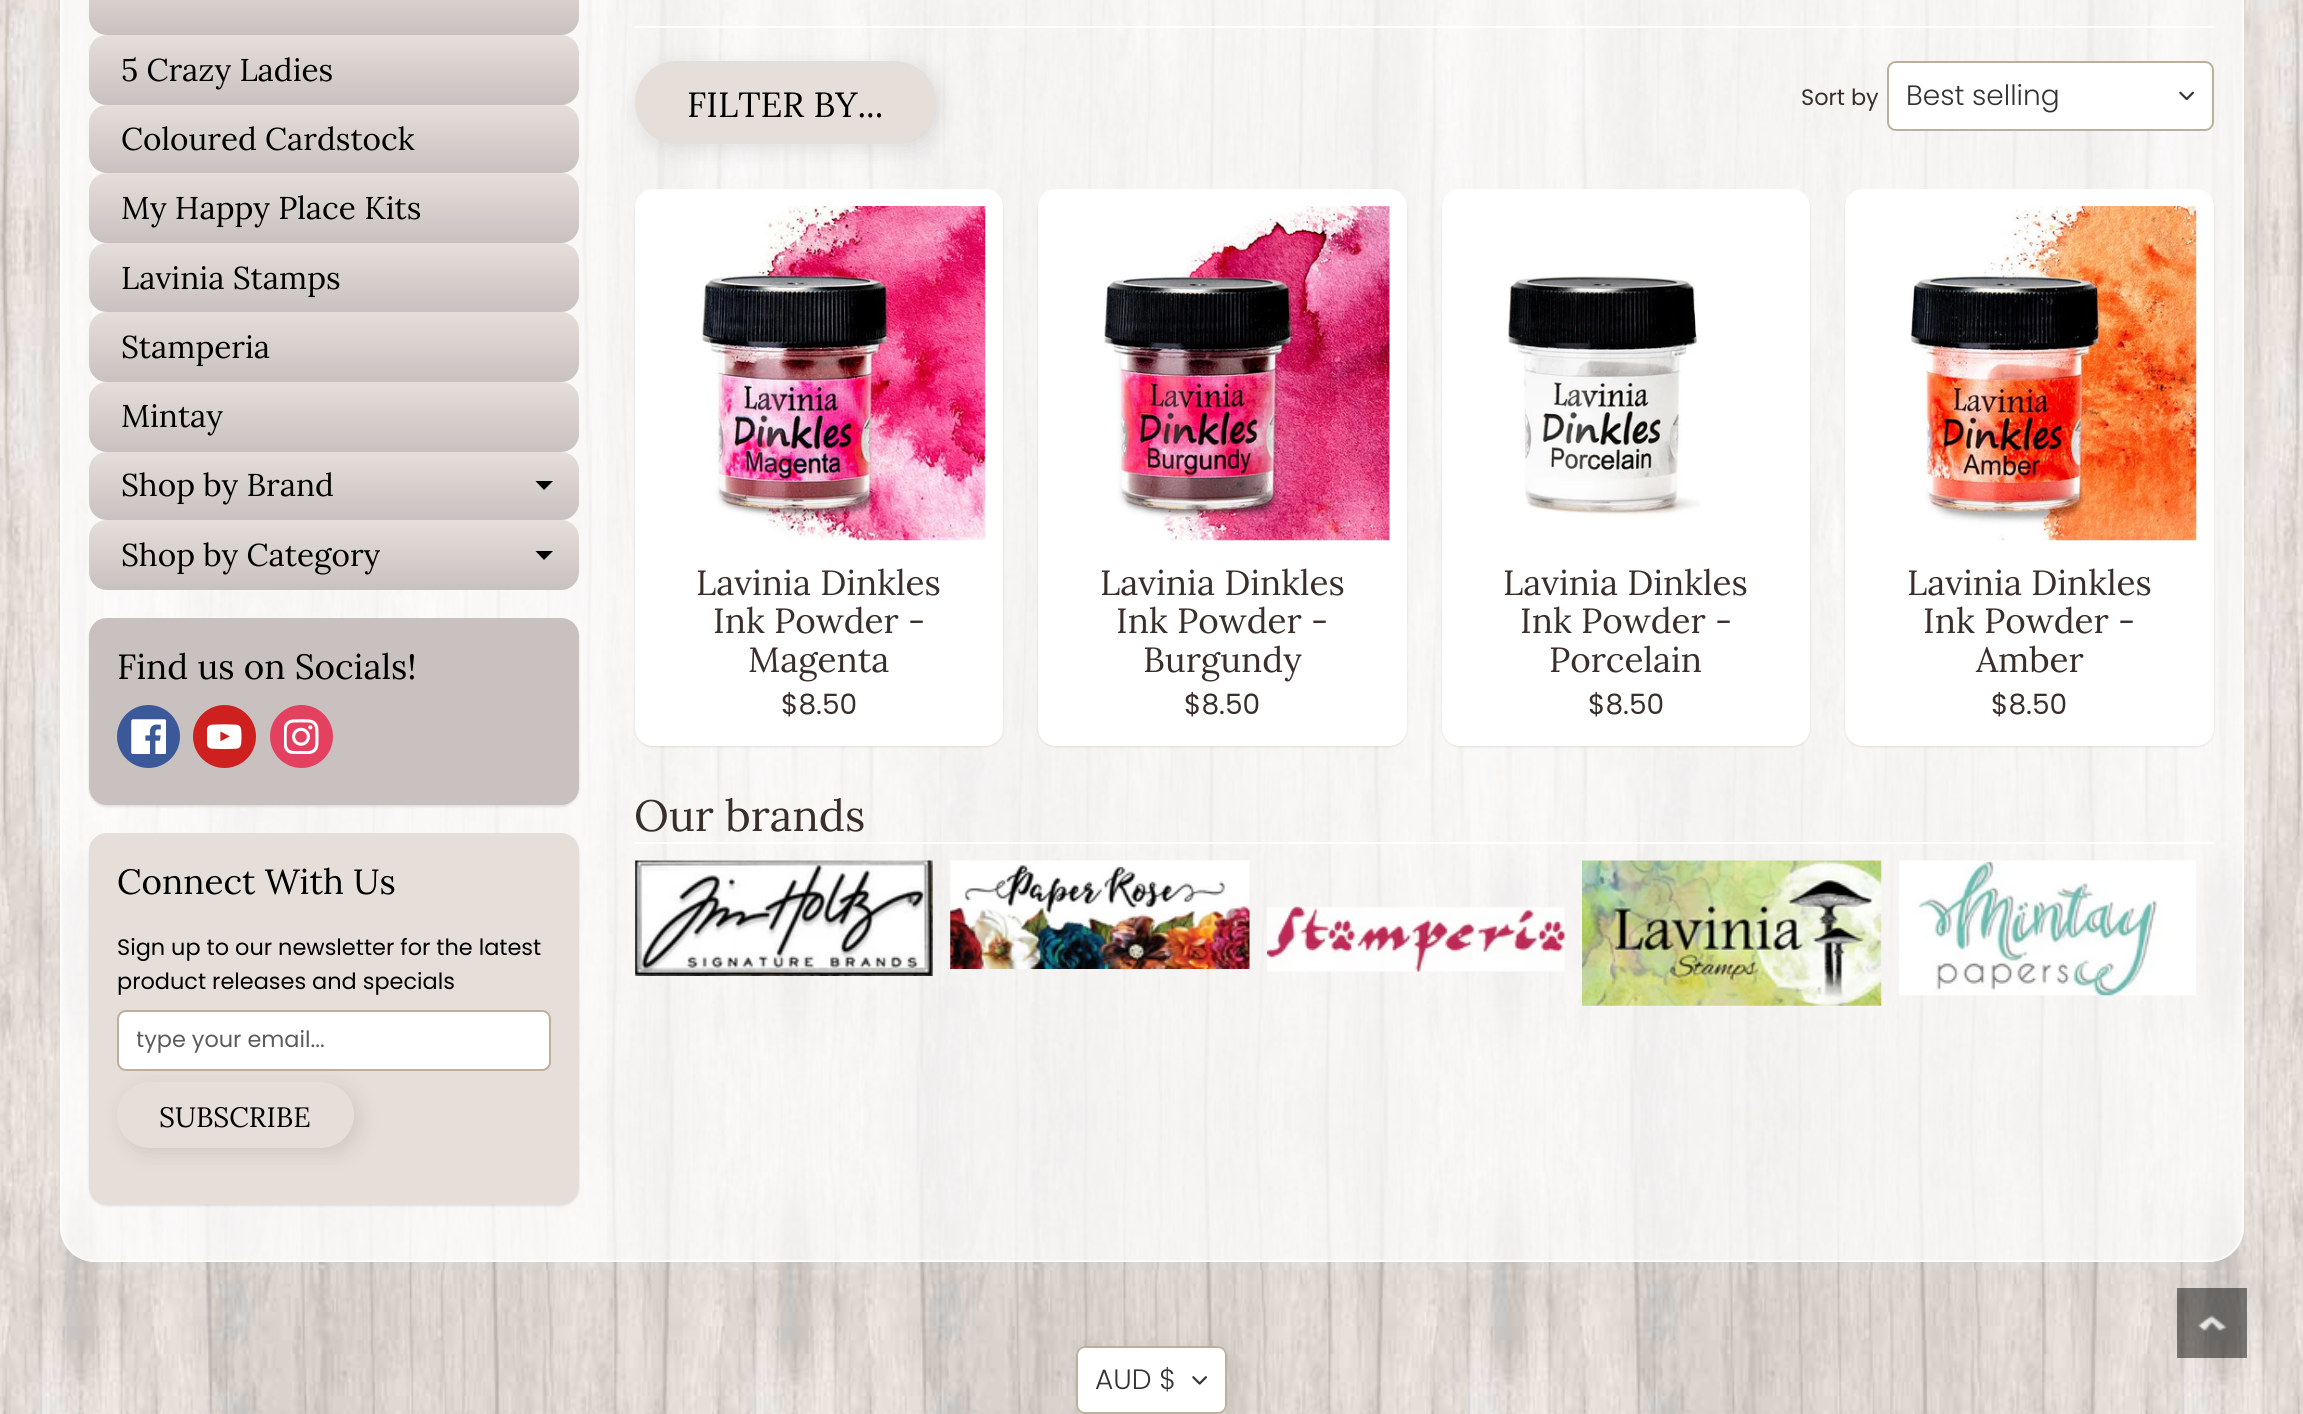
import math
import cairo


def use_color(cr, r, g, b):
  cr.set_source_rgb(r / 255, g / 255, b / 255)

def text(cr, x, y, s, family, size, color, bold=False, italic=False):
  cr.select_font_face(family, cairo.FONT_SLANT_ITALIC if italic else cairo.FONT_SLANT_NORMAL, cairo.FONT_WEIGHT_BOLD if bold else cairo.FONT_WEIGHT_NORMAL)
  cr.set_font_size(size)
  use_color(cr, *color)
  cr.move_to(x, y)
  cr.show_text(s)

def box(cr, x, y, w, h, *color):
  use_color(cr, *color)
  cr.rectangle(x, y, w, h)
  cr.fill()

def round_rect(cr, x, y, w, h, r):
  cr.new_sub_path()
  for i, (u, v) in enumerate([(x + w - r, y + h - r), (x + r, y + h - r), (x + r, y + r), (x + w - r, y + r)]):
    cr.arc(u, v, r, i * math.pi / 2, (i + 1) * math.pi / 2)
  cr.close_path()

def shadow(cr, x, y, w, h, r, blur, alpha):
  cr.push_group_with_content(cairo.CONTENT_ALPHA)
  cr.set_operator(cairo.OPERATOR_SOURCE)
  for i in range(15, -16, -2):
    e = blur * i / 6
    if min(w, h) + 2 * e > 0:
      cr.set_source_rgba(0, 0, 0, alpha * math.erfc((i - 1) / 8.5) / 2)
      round_rect(cr, x - e, y - e, w + 2 * e, h + 2 * e, max(0, min(r + e + blur * .6, min(w, h) / 2 + e)))
      cr.fill()
  cr.mask(cr.pop_group())

def picture(cr, path, x, y, w, h):
  cr.save()
  cr.set_source_surface(cairo.ImageSurface.create_from_png(path), x, y)
  cr.rectangle(x, y, w, h)
  cr.fill()
  cr.restore()

def draw(cr):
  use_color(cr, 255, 255, 255)
  cr.paint()
  picture(cr, "img_01.png", 0, 0, 2303, 1414)
  cr.set_source_rgba(1, 1, 1, 0.75)
  round_rect(cr, 60, -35, 2184, 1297, 35)
  cr.fill()
  round_rect(cr, 61, -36, 2182, 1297, 34)
  cr.set_source_rgba(1, 1, 1, 0.7)
  cr.stroke()
  cr.set_source_rgba(1, 1, 1, 0.25)
  cr.new_path()
  cr.move_to(94, -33)
  cr.line_to(607, -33)
  cr.line_to(607, 1260)
  cr.line_to(94, 1260)
  cr.curve_to(76, 1260, 61, 1245, 61, 1227)
  cr.line_to(61, 0)
  cr.curve_to(61, -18, 76, -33, 94, -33)
  cr.close_path()
  cr.fill()
  gradient = cairo.LinearGradient(334, -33, 334, 35)
  gradient.add_color_stop_rgba(0, 0.898, 0.871, 0.851, 1)
  gradient.add_color_stop_rgba(1, 0.784, 0.757, 0.753, 1)
  cr.set_source(gradient)
  round_rect(cr, 89, -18, 490, 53, 18)
  cr.fill()
  gradient = cairo.LinearGradient(334, 35, 334, 105)
  gradient.add_color_stop_rgba(0, 0.898, 0.871, 0.851, 1)
  gradient.add_color_stop_rgba(1, 0.784, 0.757, 0.753, 1)
  cr.set_source(gradient)
  round_rect(cr, 89, 35, 490, 70, 18)
  cr.fill()
  gradient = cairo.LinearGradient(334, 105, 334, 173)
  gradient.add_color_stop_rgba(0, 0.898, 0.871, 0.851, 1)
  gradient.add_color_stop_rgba(1, 0.784, 0.757, 0.753, 1)
  cr.set_source(gradient)
  round_rect(cr, 89, 105, 490, 68, 18)
  cr.fill()
  gradient = cairo.LinearGradient(334, 173, 334, 243)
  gradient.add_color_stop_rgba(0, 0.898, 0.871, 0.851, 1)
  gradient.add_color_stop_rgba(1, 0.784, 0.757, 0.753, 1)
  cr.set_source(gradient)
  round_rect(cr, 89, 173, 490, 70, 18)
  cr.fill()
  gradient = cairo.LinearGradient(334, 243, 334, 312)
  gradient.add_color_stop_rgba(0, 0.898, 0.871, 0.851, 1)
  gradient.add_color_stop_rgba(1, 0.784, 0.757, 0.753, 1)
  cr.set_source(gradient)
  round_rect(cr, 89, 243, 490, 69, 18)
  cr.fill()
  gradient = cairo.LinearGradient(334, 311, 334, 382)
  gradient.add_color_stop_rgba(0, 0.898, 0.871, 0.851, 1)
  gradient.add_color_stop_rgba(1, 0.784, 0.757, 0.753, 1)
  cr.set_source(gradient)
  round_rect(cr, 89, 312, 490, 70, 18)
  cr.fill()
  gradient = cairo.LinearGradient(334, 381, 334, 452)
  gradient.add_color_stop_rgba(0, 0.898, 0.871, 0.851, 1)
  gradient.add_color_stop_rgba(1, 0.784, 0.757, 0.753, 1)
  cr.set_source(gradient)
  round_rect(cr, 89, 382, 490, 70, 18)
  cr.fill()
  gradient = cairo.LinearGradient(334, 452, 334, 520)
  gradient.add_color_stop_rgba(0, 0.898, 0.871, 0.851, 1)
  gradient.add_color_stop_rgba(1, 0.784, 0.757, 0.753, 1)
  cr.set_source(gradient)
  round_rect(cr, 89, 452, 490, 68, 18)
  cr.fill()
  use_color(cr, 0, 0, 0)
  cr.new_path()
  cr.move_to(535.5, 481)
  cr.line_to(553, 481)
  cr.line_to(544, 490)
  cr.close_path()
  cr.fill()
  gradient = cairo.LinearGradient(334, 520, 334, 590)
  gradient.add_color_stop_rgba(0, 0.898, 0.871, 0.851, 1)
  gradient.add_color_stop_rgba(1, 0.784, 0.757, 0.753, 1)
  cr.set_source(gradient)
  round_rect(cr, 89, 520, 490, 70, 18)
  cr.fill()
  use_color(cr, 0, 0, 0)
  cr.new_path()
  cr.move_to(535.5, 551)
  cr.line_to(553, 551)
  cr.line_to(544, 560)
  cr.close_path()
  cr.fill()
  use_color(cr, 0, 0, 0)
  shadow(cr, 89, 620, 490, 187, 18, 1, 0.1)
  use_color(cr, 200, 193, 192)
  round_rect(cr, 89, 618, 490, 187, 18)
  cr.fill()
  use_color(cr, 59, 89, 152)
  cr.arc(148.5, 736.5, 31.5, 0, 2 * math.pi)
  cr.fill()
  picture(cr, "img_02.png", 131, 719, 35, 35)
  use_color(cr, 205, 32, 31)
  cr.arc(224.5, 736.5, 31.5, 0, 2 * math.pi)
  cr.fill()
  picture(cr, "img_03.png", 207, 724, 35, 26)
  use_color(cr, 228, 64, 95)
  cr.arc(301.5, 736.5, 31.5, 0, 2 * math.pi)
  cr.fill()
  picture(cr, "img_04.png", 284, 719, 35, 35)
  use_color(cr, 0, 0, 0)
  shadow(cr, 89, 835, 490, 371, 18, 1, 0.1)
  use_color(cr, 229, 222, 217)
  round_rect(cr, 89, 833, 490, 371, 18)
  cr.fill()
  use_color(cr, 255, 255, 255)
  round_rect(cr, 118, 1011, 432, 59, 8)
  cr.fill_preserve()
  use_color(cr, 189, 175, 155)
  cr.stroke()
  use_color(cr, 0, 0, 0)
  shadow(cr, 123, 1087, 236, 66, 33, 10.5, 0.1)
  use_color(cr, 229, 222, 217)
  round_rect(cr, 117, 1082, 237, 66, 33)
  cr.fill()
  box(cr, 635, 26, 1579, 2, 255, 255, 255)
  use_color(cr, 0, 0, 0)
  shadow(cr, 641, 67, 301, 82, 41, 10.5, 0.1)
  use_color(cr, 229, 222, 217)
  round_rect(cr, 635, 61, 301, 83, 41.5)
  cr.fill()
  use_color(cr, 255, 255, 255)
  round_rect(cr, 1887, 61, 327, 70, 9)
  cr.fill()
  picture(cr, "img_05.png", 2179, 91, 15, 10)
  round_rect(cr, 1888, 62, 325, 68, 8)
  use_color(cr, 189, 175, 155)
  cr.stroke()
  use_color(cr, 0, 0, 0)
  shadow(cr, 635, 191, 368, 556, 18, 1, 0.1)
  use_color(cr, 255, 255, 255)
  round_rect(cr, 635, 189, 368, 557, 18)
  cr.fill()
  picture(cr, "img_06.png", 701, 206, 285, 335)
  use_color(cr, 0, 0, 0)
  shadow(cr, 1038, 191, 369, 556, 18, 1, 0.1)
  use_color(cr, 255, 255, 255)
  round_rect(cr, 1038, 189, 369, 557, 18)
  cr.fill()
  picture(cr, "img_07.png", 1103, 206, 287, 335)
  use_color(cr, 0, 0, 0)
  shadow(cr, 1442, 191, 368, 556, 18, 1, 0.1)
  use_color(cr, 255, 255, 255)
  round_rect(cr, 1442, 189, 368, 557, 18)
  cr.fill()
  picture(cr, "img_08.png", 1508, 276, 192, 240)
  use_color(cr, 0, 0, 0)
  shadow(cr, 1845, 191, 369, 556, 18, 1, 0.1)
  use_color(cr, 255, 255, 255)
  round_rect(cr, 1845, 189, 369, 557, 18)
  cr.fill()
  picture(cr, "img_09.png", 1910, 206, 287, 335)
  box(cr, 635, 842, 1579, 2, 255, 255, 255)
  picture(cr, "img_10.png", 635, 860, 298, 116)
  picture(cr, "img_11.png", 950, 860, 300, 109)
  picture(cr, "img_12.png", 1267, 906, 298, 66)
  picture(cr, "img_13.png", 1582, 860, 300, 146)
  picture(cr, "img_14.png", 1899, 860, 297, 136)
  picture(cr, "img_15.png", 2177, 1288, 70, 70)
  use_color(cr, 0, 0, 0)
  shadow(cr, 1082, 1351, 150, 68, 9, 10.5, 0.1)
  use_color(cr, 255, 255, 255)
  round_rect(cr, 1076, 1346, 151, 68, 9)
  cr.fill()
  picture(cr, "img_16.png", 1192, 1376, 15, 9)
  round_rect(cr, 1077, 1347, 149, 66, 8)
  use_color(cr, 189, 175, 155)
  cr.stroke()
  text(cr, 121, 81, "5 Crazy Ladies", "Lora", 31.5, (0, 0, 0))
  text(cr, 121, 150, "Coloured Cardstock", "Lora", 31.5, (0, 0, 0))
  text(cr, 121, 219, "My Happy Place Kits", "Lora", 31.5, (0, 0, 0))
  text(cr, 121, 289, "Lavinia Stamps", "Lora", 31.5, (0, 0, 0))
  text(cr, 121, 358, "Stamperia", "Lora", 31.5, (0, 0, 0))
  text(cr, 121, 427, "Mintay", "Lora", 31.5, (0, 0, 0))
  text(cr, 121, 496, "Shop by Brand", "Lora", 31.5, (0, 0, 0))
  text(cr, 121, 566, "Shop by Category", "Lora", 31.5, (0, 0, 0))
  text(cr, 117, 679, "Find us on Socials!", "Lora", 35, (0, 0, 0))
  text(cr, 117, 894, "Connect With Us", "Lora", 35, (0, 0, 0))
  text(cr, 117, 955, "Sign up to our newsletter for the latest", "Poppins", 22.4, (0, 0, 0))
  text(cr, 117, 989, "product releases and specials", "Poppins", 22.4, (0, 0, 0))
  cr.save()
  cr.rectangle(137, 1024, 400, 31)
  cr.clip()
  text(cr, 136, 1047, "type your email...", "Poppins", 22.4, (92, 92, 92))
  cr.restore()
  text(cr, 159, 1127, "SUBSCRIBE", "Lora", 28, (0, 0, 0))
  text(cr, 687, 117, "FILTER BY...", "Lora", 35, (0, 0, 0))
  text(cr, 1801, 105, "Sort by", "Poppins", 22.4, (57, 46, 42))
  text(cr, 1906, 105, "Best selling", "Poppins Light", 28, (51, 51, 51))
  text(cr, 696, 595, "Lavinia Dinkles", "Lora", 35, (57, 46, 42))
  text(cr, 713, 633, "Ink Powder -", "Lora", 35, (57, 46, 42))
  text(cr, 748, 672, "Magenta", "Lora", 35, (57, 46, 42))
  text(cr, 781, 714, "$8.50", "Poppins", 28, (57, 46, 42))
  text(cr, 1100, 595, "Lavinia Dinkles", "Lora", 35, (57, 46, 42))
  text(cr, 1116, 633, "Ink Powder -", "Lora", 35, (57, 46, 42))
  text(cr, 1143, 672, "Burgundy", "Lora", 35, (57, 46, 42))
  text(cr, 1184, 714, "$8.50", "Poppins", 28, (57, 46, 42))
  text(cr, 1503, 595, "Lavinia Dinkles", "Lora", 35, (57, 46, 42))
  text(cr, 1520, 633, "Ink Powder -", "Lora", 35, (57, 46, 42))
  text(cr, 1549, 672, "Porcelain", "Lora", 35, (57, 46, 42))
  text(cr, 1588, 714, "$8.50", "Poppins", 28, (57, 46, 42))
  text(cr, 1907, 595, "Lavinia Dinkles", "Lora", 35, (57, 46, 42))
  text(cr, 1923, 633, "Ink Powder -", "Lora", 35, (57, 46, 42))
  text(cr, 1976, 672, "Amber", "Lora", 35, (57, 46, 42))
  text(cr, 1991, 714, "$8.50", "Poppins", 28, (57, 46, 42))
  text(cr, 634, 831, "Our brands", "Lora", 43.75, (57, 46, 42))
  text(cr, 1095, 1389, "AUD $", "Poppins Light", 28, (51, 51, 51))


surface = cairo.ImageSurface(cairo.FORMAT_RGB24, 2303, 1414)
cr = cairo.Context(surface)
options = cairo.FontOptions()
options.set_hint_metrics(cairo.HINT_METRICS_OFF)
options.set_hint_style(cairo.HINT_STYLE_NONE)
cr.set_font_options(options)
cr.set_miter_limit(4)
draw(cr)
surface.write_to_png("out.png")
